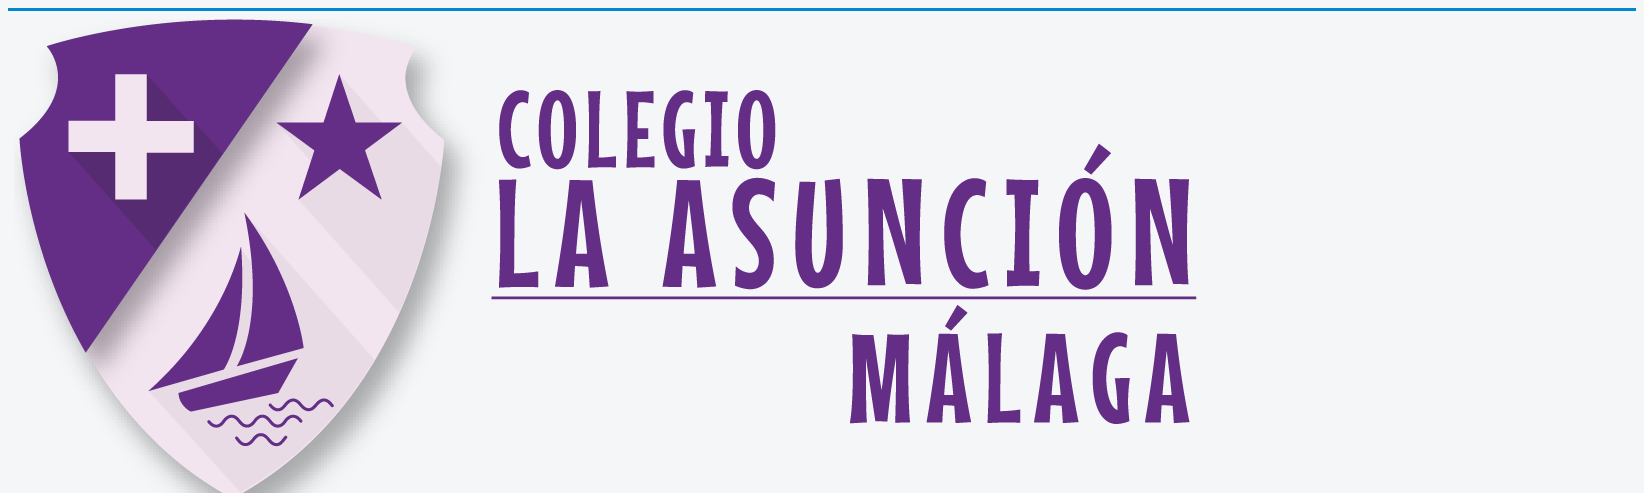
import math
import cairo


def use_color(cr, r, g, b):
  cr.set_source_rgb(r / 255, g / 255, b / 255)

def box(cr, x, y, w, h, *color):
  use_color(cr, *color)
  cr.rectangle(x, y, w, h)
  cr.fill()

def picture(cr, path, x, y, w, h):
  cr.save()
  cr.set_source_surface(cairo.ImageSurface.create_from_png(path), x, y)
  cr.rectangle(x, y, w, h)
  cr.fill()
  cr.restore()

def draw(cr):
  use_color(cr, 244, 246, 247)
  cr.paint()
  box(cr, 8, 8, 1628, 3, 0, 136, 204)
  picture(cr, "img_01.png", 14, 19, 1183, 474)


surface = cairo.ImageSurface(cairo.FORMAT_RGB24, 1644, 493)
cr = cairo.Context(surface)
options = cairo.FontOptions()
options.set_hint_metrics(cairo.HINT_METRICS_OFF)
options.set_hint_style(cairo.HINT_STYLE_NONE)
cr.set_font_options(options)
cr.set_miter_limit(4)
draw(cr)
surface.write_to_png("out.png")
